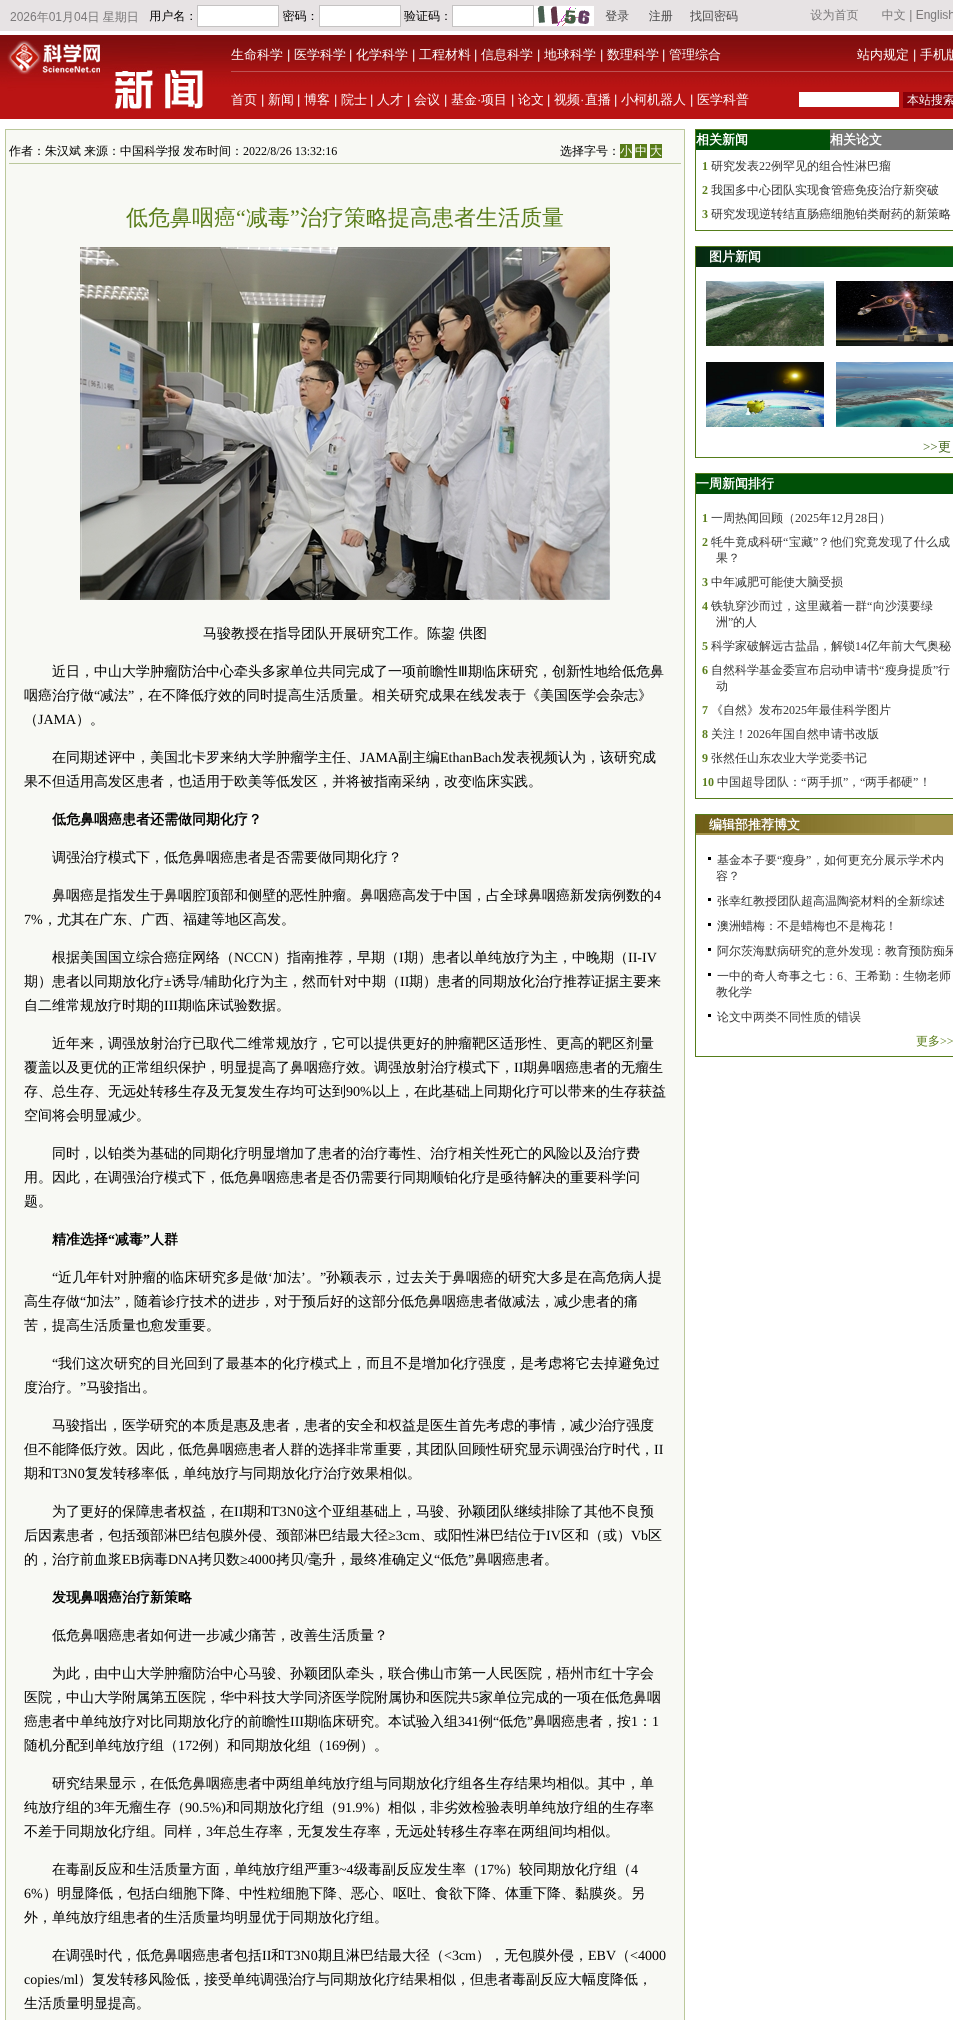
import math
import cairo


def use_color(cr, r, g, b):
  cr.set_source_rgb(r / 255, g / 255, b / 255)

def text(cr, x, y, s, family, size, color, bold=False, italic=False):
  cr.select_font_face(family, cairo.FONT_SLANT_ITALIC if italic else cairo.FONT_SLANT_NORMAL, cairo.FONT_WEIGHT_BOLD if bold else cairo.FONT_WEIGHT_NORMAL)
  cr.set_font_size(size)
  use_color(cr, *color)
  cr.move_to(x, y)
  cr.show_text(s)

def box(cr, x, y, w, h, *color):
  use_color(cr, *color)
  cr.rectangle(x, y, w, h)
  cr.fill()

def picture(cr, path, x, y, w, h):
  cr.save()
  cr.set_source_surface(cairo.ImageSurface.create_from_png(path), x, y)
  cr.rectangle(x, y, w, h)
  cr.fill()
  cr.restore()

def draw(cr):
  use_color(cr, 255, 255, 255)
  cr.paint()
  picture(cr, "img_01.png", 0, 0, 953, 31)
  picture(cr, "img_02.png", 0, 35, 953, 84)
  picture(cr, "img_03.png", 7, 40, 196, 72)
  box(cr, 231, 71, 722, 1, 189, 83, 84)
  box(cr, 799, 92, 100, 15, 255, 255, 255)
  box(cr, 903, 92, 50, 16, 136, 0, 8)
  use_color(cr, 248, 249, 244)
  cr.rectangle(5.5, 129.5, 679, 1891)
  cr.fill_preserve()
  use_color(cr, 187, 200, 155)
  cr.set_line_width(1)
  cr.stroke()
  box(cr, 9, 163, 672, 1, 187, 200, 155)
  box(cr, 620, 144, 12, 14, 88, 124, 25)
  box(cr, 635, 144, 12, 14, 88, 124, 25)
  box(cr, 650, 144, 12, 14, 88, 124, 25)
  picture(cr, "img_04.png", 80, 247, 530, 353)
  cr.rectangle(695.5, 129.5, 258, 101)
  use_color(cr, 85, 125, 26)
  cr.stroke()
  box(cr, 696, 130, 134, 20, 0, 80, 7)
  box(cr, 830, 130, 123, 20, 120, 120, 120)
  cr.rectangle(695.5, 246.5, 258, 211)
  use_color(cr, 85, 125, 26)
  cr.stroke()
  picture(cr, "img_05.png", 696, 247, 257, 20)
  picture(cr, "img_06.png", 706, 281, 118, 65)
  picture(cr, "img_07.png", 836, 281, 117, 65)
  picture(cr, "img_08.png", 706, 362, 118, 65)
  picture(cr, "img_09.png", 836, 362, 117, 65)
  cr.rectangle(695.5, 473.5, 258, 325)
  cr.stroke()
  box(cr, 696, 474, 257, 20, 0, 80, 7)
  cr.rectangle(695.5, 814.5, 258, 242)
  use_color(cr, 85, 125, 26)
  cr.stroke()
  box(cr, 696, 815, 257, 20, 164, 147, 75)
  picture(cr, "img_10.png", 696, 815, 219, 18)
  box(cr, 708, 857, 3, 3, 0, 0, 0)
  box(cr, 708, 898, 3, 3, 0, 0, 0)
  box(cr, 708, 923, 3, 3, 0, 0, 0)
  box(cr, 708, 948, 3, 3, 0, 0, 0)
  box(cr, 708, 973, 3, 3, 0, 0, 0)
  box(cr, 708, 1014, 3, 3, 0, 0, 0)
  text(cr, 231, 59, "生命科学", "WenQuanYi Zen Hei Medium", 13, (255, 255, 255))
  text(cr, 287, 59, "|", "Liberation Sans", 13, (255, 255, 255))
  text(cr, 294, 59, "医学科学", "WenQuanYi Zen Hei Medium", 13, (255, 255, 255))
  text(cr, 349, 59, "|", "Liberation Sans", 13, (255, 255, 255))
  text(cr, 356, 59, "化学科学", "WenQuanYi Zen Hei Medium", 13, (255, 255, 255))
  text(cr, 412, 59, "|", "Liberation Sans", 13, (255, 255, 255))
  text(cr, 419, 59, "工程材料", "WenQuanYi Zen Hei Medium", 13, (255, 255, 255))
  text(cr, 474, 59, "|", "Liberation Sans", 13, (255, 255, 255))
  text(cr, 481, 59, "信息科学", "WenQuanYi Zen Hei Medium", 13, (255, 255, 255))
  text(cr, 537, 59, "|", "Liberation Sans", 13, (255, 255, 255))
  text(cr, 544, 59, "地球科学", "WenQuanYi Zen Hei Medium", 13, (255, 255, 255))
  text(cr, 600, 59, "|", "Liberation Sans", 13, (255, 255, 255))
  text(cr, 607, 59, "数理科学", "WenQuanYi Zen Hei Medium", 13, (255, 255, 255))
  text(cr, 662, 59, "|", "Liberation Sans", 13, (255, 255, 255))
  text(cr, 669, 59, "管理综合", "WenQuanYi Zen Hei Medium", 13, (255, 255, 255))
  text(cr, 857, 59, "站内规定", "WenQuanYi Zen Hei Medium", 13, (255, 255, 255))
  text(cr, 913, 59, "|", "Liberation Sans", 13, (255, 255, 255))
  text(cr, 920, 59, "手机版", "WenQuanYi Zen Hei Medium", 13, (255, 255, 255))
  text(cr, 231, 104, "首页", "WenQuanYi Zen Hei Medium", 13, (255, 255, 255))
  text(cr, 261, 104, "|", "Liberation Sans", 13, (255, 255, 255))
  text(cr, 268, 104, "新闻", "WenQuanYi Zen Hei Medium", 13, (255, 255, 255))
  text(cr, 297, 104, "|", "Liberation Sans", 13, (255, 255, 255))
  text(cr, 304, 104, "博客", "WenQuanYi Zen Hei Medium", 13, (255, 255, 255))
  text(cr, 334, 104, "|", "Liberation Sans", 13, (255, 255, 255))
  text(cr, 341, 104, "院士", "WenQuanYi Zen Hei Medium", 13, (255, 255, 255))
  text(cr, 370, 104, "|", "Liberation Sans", 13, (255, 255, 255))
  text(cr, 377, 104, "人才", "WenQuanYi Zen Hei Medium", 13, (255, 255, 255))
  text(cr, 407, 104, "|", "Liberation Sans", 13, (255, 255, 255))
  text(cr, 414, 104, "会议", "WenQuanYi Zen Hei Medium", 13, (255, 255, 255))
  text(cr, 444, 104, "|", "Liberation Sans", 13, (255, 255, 255))
  text(cr, 451, 104, "基金", "WenQuanYi Zen Hei Medium", 13, (255, 255, 255))
  text(cr, 477, 104, "·", "Liberation Sans", 13, (255, 255, 255))
  text(cr, 481, 104, "项目", "WenQuanYi Zen Hei Medium", 13, (255, 255, 255))
  text(cr, 511, 104, "|", "Liberation Sans", 13, (255, 255, 255))
  text(cr, 518, 104, "论文", "WenQuanYi Zen Hei Medium", 13, (255, 255, 255))
  text(cr, 547, 104, "|", "Liberation Sans", 13, (255, 255, 255))
  text(cr, 554, 104, "视频", "WenQuanYi Zen Hei Medium", 13, (255, 255, 255))
  text(cr, 580, 104, "·", "Liberation Sans", 13, (255, 255, 255))
  text(cr, 585, 104, "直播", "WenQuanYi Zen Hei Medium", 13, (255, 255, 255))
  text(cr, 614, 104, "|", "Liberation Sans", 13, (255, 255, 255))
  text(cr, 621, 104, "小柯机器人", "WenQuanYi Zen Hei Medium", 13, (255, 255, 255))
  text(cr, 690, 104, "|", "Liberation Sans", 13, (255, 255, 255))
  text(cr, 697, 104, "医学科普", "WenQuanYi Zen Hei Medium", 13, (255, 255, 255))
  text(cr, 907, 104, "本站搜索", "WenQuanYi Zen Hei Medium", 12, (255, 255, 255))
  text(cr, 9, 155, "作者：朱汉斌", "WenQuanYi Zen Hei Medium", 12, (0, 0, 0))
  text(cr, 84, 155, "来源：中国科学报", "WenQuanYi Zen Hei Medium", 12, (0, 0, 0))
  text(cr, 183, 155, "发布时间：", "WenQuanYi Zen Hei Medium", 12, (0, 0, 0))
  text(cr, 243, 155, "2022/8/26 13:32:16", "Liberation Serif", 12, (0, 0, 0))
  text(cr, 560, 155, "选择字号：", "WenQuanYi Zen Hei Medium", 12, (0, 0, 0))
  text(cr, 620, 155, "小", "WenQuanYi Zen Hei Medium", 12, (255, 255, 255))
  text(cr, 635, 155, "中", "WenQuanYi Zen Hei Medium", 12, (255, 255, 255))
  text(cr, 650, 155, "大", "WenQuanYi Zen Hei Medium", 12, (255, 255, 255))
  text(cr, 126, 225, "低危鼻咽癌", "WenQuanYi Zen Hei Medium", 22, (88, 124, 25))
  text(cr, 236, 225, "“", "Liberation Serif", 22, (88, 124, 25))
  text(cr, 246, 225, "减毒", "WenQuanYi Zen Hei Medium", 22, (88, 124, 25))
  text(cr, 290, 225, "”", "Liberation Serif", 22, (88, 124, 25))
  text(cr, 300, 225, "治疗策略提高患者生活质量", "WenQuanYi Zen Hei Medium", 22, (88, 124, 25))
  text(cr, 203, 638, "马骏教授在指导团队开展研究工作。陈鋆", "WenQuanYi Zen Hei Medium", 14, (0, 0, 0))
  text(cr, 459, 638, "供图", "WenQuanYi Zen Hei Medium", 14, (0, 0, 0))
  text(cr, 52, 676, "近日，中山大学肿瘤防治中心牵头多家单位共同完成了一项前瞻性", "WenQuanYi Zen Hei Medium", 14, (0, 0, 0))
  text(cr, 458, 676, "Ⅲ", "DejaVu Sans", 14, (0, 0, 0))
  text(cr, 468, 676, "期临床研究，创新性地给低危鼻", "WenQuanYi Zen Hei Medium", 14, (0, 0, 0))
  text(cr, 24, 700, "咽癌治疗做", "WenQuanYi Zen Hei Medium", 14, (0, 0, 0))
  text(cr, 94, 700, "“", "Liberation Serif", 14, (0, 0, 0))
  text(cr, 100, 700, "减法", "WenQuanYi Zen Hei Medium", 14, (0, 0, 0))
  text(cr, 128, 700, "”", "Liberation Serif", 14, (0, 0, 0))
  text(cr, 134, 700, "，在不降低疗效的同时提高生活质量。相关研究成果在线发表于《美国医学会杂志》", "WenQuanYi Zen Hei Medium", 14, (0, 0, 0))
  text(cr, 24, 724, "（", "WenQuanYi Zen Hei Medium", 14, (0, 0, 0))
  text(cr, 38, 724, "JAMA", "Liberation Serif", 14, (0, 0, 0))
  text(cr, 76, 724, "）。", "WenQuanYi Zen Hei Medium", 14, (0, 0, 0))
  text(cr, 52, 762, "在同期述评中，美国北卡罗来纳大学肿瘤学主任、", "WenQuanYi Zen Hei Medium", 14, (0, 0, 0))
  text(cr, 360, 762, "JAMA", "Liberation Serif", 14, (0, 0, 0))
  text(cr, 398, 762, "副主编", "WenQuanYi Zen Hei Medium", 14, (0, 0, 0))
  text(cr, 440, 762, "EthanBach", "Liberation Serif", 14, (0, 0, 0))
  text(cr, 502, 762, "发表视频认为，该研究成", "WenQuanYi Zen Hei Medium", 14, (0, 0, 0))
  text(cr, 24, 786, "果不但适用高发区患者，也适用于欧美等低发区，并将被指南采纳，改变临床实践。", "WenQuanYi Zen Hei Medium", 14, (0, 0, 0))
  text(cr, 52, 824, "低危鼻咽癌患者还需做同期化疗？", "WenQuanYi Zen Hei", 14, (0, 0, 0), bold=True)
  text(cr, 52, 862, "调强治疗模式下，低危鼻咽癌患者是否需要做同期化疗？", "WenQuanYi Zen Hei Medium", 14, (0, 0, 0))
  text(cr, 52, 900, "鼻咽癌是指发生于鼻咽腔顶部和侧壁的恶性肿瘤。鼻咽癌高发于中国，占全球鼻咽癌新发病例数的", "WenQuanYi Zen Hei Medium", 14, (0, 0, 0))
  text(cr, 654, 900, "4", "Liberation Serif", 14, (0, 0, 0))
  text(cr, 24, 924, "7%", "Liberation Serif", 14, (0, 0, 0))
  text(cr, 43, 924, "，尤其在广东、广西、福建等地区高发。", "WenQuanYi Zen Hei Medium", 14, (0, 0, 0))
  text(cr, 52, 962, "根据美国国立综合癌症网络（", "WenQuanYi Zen Hei Medium", 14, (0, 0, 0))
  text(cr, 234, 962, "NCCN", "Liberation Serif", 14, (0, 0, 0))
  text(cr, 273, 962, "）指南推荐，早期（", "WenQuanYi Zen Hei Medium", 14, (0, 0, 0))
  text(cr, 399, 962, "I", "Liberation Serif", 14, (0, 0, 0))
  text(cr, 404, 962, "期）患者以单纯放疗为主，中晚期（", "WenQuanYi Zen Hei Medium", 14, (0, 0, 0))
  text(cr, 628, 962, "II-IV", "Liberation Serif", 14, (0, 0, 0))
  text(cr, 24, 986, "期）患者以同期放化疗", "WenQuanYi Zen Hei Medium", 14, (0, 0, 0))
  text(cr, 164, 986, "±", "Liberation Serif", 14, (0, 0, 0))
  text(cr, 172, 986, "诱导", "WenQuanYi Zen Hei Medium", 14, (0, 0, 0))
  text(cr, 200, 986, "/", "Liberation Serif", 14, (0, 0, 0))
  text(cr, 204, 986, "辅助化疗为主，然而针对中期（", "WenQuanYi Zen Hei Medium", 14, (0, 0, 0))
  text(cr, 400, 986, "II", "Liberation Serif", 14, (0, 0, 0))
  text(cr, 409, 986, "期）患者的同期放化治疗推荐证据主要来", "WenQuanYi Zen Hei Medium", 14, (0, 0, 0))
  text(cr, 24, 1010, "自二维常规放疗时期的", "WenQuanYi Zen Hei Medium", 14, (0, 0, 0))
  text(cr, 164, 1010, "III", "Liberation Serif", 14, (0, 0, 0))
  text(cr, 178, 1010, "期临床试验数据。", "WenQuanYi Zen Hei Medium", 14, (0, 0, 0))
  text(cr, 52, 1048, "近年来，调强放射治疗已取代二维常规放疗，它可以提供更好的肿瘤靶区适形性、更高的靶区剂量", "WenQuanYi Zen Hei Medium", 14, (0, 0, 0))
  text(cr, 24, 1072, "覆盖以及更优的正常组织保护，明显提高了鼻咽癌疗效。调强放射治疗模式下，", "WenQuanYi Zen Hei Medium", 14, (0, 0, 0))
  text(cr, 514, 1072, "II", "Liberation Serif", 14, (0, 0, 0))
  text(cr, 523, 1072, "期鼻咽癌患者的无瘤生", "WenQuanYi Zen Hei Medium", 14, (0, 0, 0))
  text(cr, 24, 1096, "存、总生存、无远处转移生存及无复发生存均可达到", "WenQuanYi Zen Hei Medium", 14, (0, 0, 0))
  text(cr, 346, 1096, "90%", "Liberation Serif", 14, (0, 0, 0))
  text(cr, 372, 1096, "以上，在此基础上同期化疗可以带来的生存获益", "WenQuanYi Zen Hei Medium", 14, (0, 0, 0))
  text(cr, 24, 1120, "空间将会明显减少。", "WenQuanYi Zen Hei Medium", 14, (0, 0, 0))
  text(cr, 52, 1158, "同时，以铂类为基础的同期化疗明显增加了患者的治疗毒性、治疗相关性死亡的风险以及治疗费", "WenQuanYi Zen Hei Medium", 14, (0, 0, 0))
  text(cr, 24, 1182, "用。因此，在调强治疗模式下，低危鼻咽癌患者是否仍需要行同期顺铂化疗是亟待解决的重要科学问", "WenQuanYi Zen Hei Medium", 14, (0, 0, 0))
  text(cr, 24, 1206, "题。", "WenQuanYi Zen Hei Medium", 14, (0, 0, 0))
  text(cr, 52, 1244, "精准选择", "WenQuanYi Zen Hei", 14, (0, 0, 0), bold=True)
  text(cr, 108, 1244, "“", "Liberation Serif", 14, (0, 0, 0), bold=True)
  text(cr, 115, 1244, "减毒", "WenQuanYi Zen Hei", 14, (0, 0, 0), bold=True)
  text(cr, 143, 1244, "”", "Liberation Serif", 14, (0, 0, 0), bold=True)
  text(cr, 150, 1244, "人群", "WenQuanYi Zen Hei", 14, (0, 0, 0), bold=True)
  text(cr, 52, 1282, "“", "Liberation Serif", 14, (0, 0, 0))
  text(cr, 58, 1282, "近几年针对肿瘤的临床研究多是做", "WenQuanYi Zen Hei Medium", 14, (0, 0, 0))
  text(cr, 268, 1282, "‘", "Liberation Serif", 14, (0, 0, 0))
  text(cr, 273, 1282, "加法", "WenQuanYi Zen Hei Medium", 14, (0, 0, 0))
  text(cr, 301, 1282, "’", "Liberation Serif", 14, (0, 0, 0))
  text(cr, 320, 1282, "”", "Liberation Serif", 14, (0, 0, 0))
  text(cr, 326, 1282, "孙颖表示，过去关于鼻咽癌的研究大多是在高危病人提", "WenQuanYi Zen Hei Medium", 14, (0, 0, 0))
  text(cr, 306, 1282, "。", "WenQuanYi Zen Hei Medium", 14, (0, 0, 0))
  text(cr, 24, 1306, "高生存做", "WenQuanYi Zen Hei Medium", 14, (0, 0, 0))
  text(cr, 80, 1306, "“", "Liberation Serif", 14, (0, 0, 0))
  text(cr, 86, 1306, "加法", "WenQuanYi Zen Hei Medium", 14, (0, 0, 0))
  text(cr, 114, 1306, "”", "Liberation Serif", 14, (0, 0, 0))
  text(cr, 120, 1306, "，随着诊疗技术的进步，对于预后好的这部分低危鼻咽癌患者做减法，减少患者的痛", "WenQuanYi Zen Hei Medium", 14, (0, 0, 0))
  text(cr, 24, 1330, "苦，提高生活质量也愈发重要。", "WenQuanYi Zen Hei Medium", 14, (0, 0, 0))
  text(cr, 52, 1368, "“", "Liberation Serif", 14, (0, 0, 0))
  text(cr, 58, 1368, "我们这次研究的目光回到了最基本的化疗模式上，而且不是增加化疗强度，是考虑将它去掉避免过", "WenQuanYi Zen Hei Medium", 14, (0, 0, 0))
  text(cr, 24, 1392, "度治疗。", "WenQuanYi Zen Hei Medium", 14, (0, 0, 0))
  text(cr, 80, 1392, "”", "Liberation Serif", 14, (0, 0, 0))
  text(cr, 86, 1392, "马骏指出。", "WenQuanYi Zen Hei Medium", 14, (0, 0, 0))
  text(cr, 52, 1430, "马骏指出，医学研究的本质是惠及患者，患者的安全和权益是医生首先考虑的事情，减少治疗强度", "WenQuanYi Zen Hei Medium", 14, (0, 0, 0))
  text(cr, 24, 1454, "但不能降低疗效。因此，低危鼻咽癌患者人群的选择非常重要，其团队回顾性研究显示调强治疗时代，", "WenQuanYi Zen Hei Medium", 14, (0, 0, 0))
  text(cr, 654, 1454, "II", "Liberation Serif", 14, (0, 0, 0))
  text(cr, 24, 1478, "期和", "WenQuanYi Zen Hei Medium", 14, (0, 0, 0))
  text(cr, 52, 1478, "T3N0", "Liberation Serif", 14, (0, 0, 0))
  text(cr, 85, 1478, "复发转移率低，单纯放疗与同期放化疗治疗效果相似。", "WenQuanYi Zen Hei Medium", 14, (0, 0, 0))
  text(cr, 52, 1516, "为了更好的保障患者权益，在", "WenQuanYi Zen Hei Medium", 14, (0, 0, 0))
  text(cr, 234, 1516, "II", "Liberation Serif", 14, (0, 0, 0))
  text(cr, 243, 1516, "期和", "WenQuanYi Zen Hei Medium", 14, (0, 0, 0))
  text(cr, 271, 1516, "T3N0", "Liberation Serif", 14, (0, 0, 0))
  text(cr, 304, 1516, "这个亚组基础上，马骏、孙颖团队继续排除了其他不良预", "WenQuanYi Zen Hei Medium", 14, (0, 0, 0))
  text(cr, 24, 1540, "后因素患者，包括颈部淋巴结包膜外侵、颈部淋巴结最大径", "WenQuanYi Zen Hei Medium", 14, (0, 0, 0))
  text(cr, 388, 1540, "≥3cm", "Liberation Serif", 14, (0, 0, 0))
  text(cr, 420, 1540, "、或阳性淋巴结位于", "WenQuanYi Zen Hei Medium", 14, (0, 0, 0))
  text(cr, 546, 1540, "IV", "Liberation Serif", 14, (0, 0, 0))
  text(cr, 561, 1540, "区和（或）", "WenQuanYi Zen Hei Medium", 14, (0, 0, 0))
  text(cr, 631, 1540, "Vb", "Liberation Serif", 14, (0, 0, 0))
  text(cr, 648, 1540, "区", "WenQuanYi Zen Hei Medium", 14, (0, 0, 0))
  text(cr, 24, 1564, "的，治疗前血浆", "WenQuanYi Zen Hei Medium", 14, (0, 0, 0))
  text(cr, 122, 1564, "EB", "Liberation Serif", 14, (0, 0, 0))
  text(cr, 140, 1564, "病毒", "WenQuanYi Zen Hei Medium", 14, (0, 0, 0))
  text(cr, 168, 1564, "DNA", "Liberation Serif", 14, (0, 0, 0))
  text(cr, 198, 1564, "拷贝数", "WenQuanYi Zen Hei Medium", 14, (0, 0, 0))
  text(cr, 240, 1564, "≥4000", "Liberation Serif", 14, (0, 0, 0))
  text(cr, 276, 1564, "拷贝", "WenQuanYi Zen Hei Medium", 14, (0, 0, 0))
  text(cr, 304, 1564, "/", "Liberation Serif", 14, (0, 0, 0))
  text(cr, 308, 1564, "毫升，最终准确定义", "WenQuanYi Zen Hei Medium", 14, (0, 0, 0))
  text(cr, 434, 1564, "“", "Liberation Serif", 14, (0, 0, 0))
  text(cr, 440, 1564, "低危", "WenQuanYi Zen Hei Medium", 14, (0, 0, 0))
  text(cr, 468, 1564, "”", "Liberation Serif", 14, (0, 0, 0))
  text(cr, 474, 1564, "鼻咽癌患者。", "WenQuanYi Zen Hei Medium", 14, (0, 0, 0))
  text(cr, 52, 1602, "发现鼻咽癌治疗新策略", "WenQuanYi Zen Hei", 14, (0, 0, 0), bold=True)
  text(cr, 52, 1640, "低危鼻咽癌患者如何进一步减少痛苦，改善生活质量？", "WenQuanYi Zen Hei Medium", 14, (0, 0, 0))
  text(cr, 52, 1678, "为此，由中山大学肿瘤防治中心马骏、孙颖团队牵头，联合佛山市第一人民医院，梧州市红十字会", "WenQuanYi Zen Hei Medium", 14, (0, 0, 0))
  text(cr, 24, 1702, "医院，中山大学附属第五医院，华中科技大学同济医学院附属协和医院共", "WenQuanYi Zen Hei Medium", 14, (0, 0, 0))
  text(cr, 472, 1702, "5", "Liberation Serif", 14, (0, 0, 0))
  text(cr, 479, 1702, "家单位完成的一项在低危鼻咽", "WenQuanYi Zen Hei Medium", 14, (0, 0, 0))
  text(cr, 24, 1726, "癌患者中单纯放疗对比同期放化疗的前瞻性", "WenQuanYi Zen Hei Medium", 14, (0, 0, 0))
  text(cr, 290, 1726, "III", "Liberation Serif", 14, (0, 0, 0))
  text(cr, 304, 1726, "期临床研究。本试验入组", "WenQuanYi Zen Hei Medium", 14, (0, 0, 0))
  text(cr, 458, 1726, "341", "Liberation Serif", 14, (0, 0, 0))
  text(cr, 479, 1726, "例", "WenQuanYi Zen Hei Medium", 14, (0, 0, 0))
  text(cr, 493, 1726, "“", "Liberation Serif", 14, (0, 0, 0))
  text(cr, 499, 1726, "低危", "WenQuanYi Zen Hei Medium", 14, (0, 0, 0))
  text(cr, 527, 1726, "”", "Liberation Serif", 14, (0, 0, 0))
  text(cr, 533, 1726, "鼻咽癌患者，按", "WenQuanYi Zen Hei Medium", 14, (0, 0, 0))
  text(cr, 631, 1726, "1", "Liberation Serif", 14, (0, 0, 0))
  text(cr, 638, 1726, "：", "WenQuanYi Zen Hei Medium", 14, (0, 0, 0))
  text(cr, 652, 1726, "1", "Liberation Serif", 14, (0, 0, 0))
  text(cr, 24, 1750, "随机分配到单纯放疗组（", "WenQuanYi Zen Hei Medium", 14, (0, 0, 0))
  text(cr, 178, 1750, "172", "Liberation Serif", 14, (0, 0, 0))
  text(cr, 199, 1750, "例）和同期放化组（", "WenQuanYi Zen Hei Medium", 14, (0, 0, 0))
  text(cr, 325, 1750, "169", "Liberation Serif", 14, (0, 0, 0))
  text(cr, 346, 1750, "例）。", "WenQuanYi Zen Hei Medium", 14, (0, 0, 0))
  text(cr, 52, 1788, "研究结果显示，在低危鼻咽癌患者中两组单纯放疗组与同期放化疗组各生存结果均相似。其中，单", "WenQuanYi Zen Hei Medium", 14, (0, 0, 0))
  text(cr, 24, 1812, "纯放疗组的", "WenQuanYi Zen Hei Medium", 14, (0, 0, 0))
  text(cr, 94, 1812, "3", "Liberation Serif", 14, (0, 0, 0))
  text(cr, 101, 1812, "年无瘤生存（", "WenQuanYi Zen Hei Medium", 14, (0, 0, 0))
  text(cr, 185, 1812, "90.5%)", "Liberation Serif", 14, (0, 0, 0))
  text(cr, 226, 1812, "和同期放化疗组（", "WenQuanYi Zen Hei Medium", 14, (0, 0, 0))
  text(cr, 338, 1812, "91.9%", "Liberation Serif", 14, (0, 0, 0))
  text(cr, 374, 1812, "）相似，非劣效检验表明单纯放疗组的生存率", "WenQuanYi Zen Hei Medium", 14, (0, 0, 0))
  text(cr, 24, 1836, "不差于同期放化疗组。同样，", "WenQuanYi Zen Hei Medium", 14, (0, 0, 0))
  text(cr, 206, 1836, "3", "Liberation Serif", 14, (0, 0, 0))
  text(cr, 213, 1836, "年总生存率，无复发生存率，无远处转移生存率在两组间均相似。", "WenQuanYi Zen Hei Medium", 14, (0, 0, 0))
  text(cr, 52, 1874, "在毒副反应和生活质量方面，单纯放疗组严重", "WenQuanYi Zen Hei Medium", 14, (0, 0, 0))
  text(cr, 332, 1874, "3~4", "Liberation Serif", 14, (0, 0, 0))
  text(cr, 354, 1874, "级毒副反应发生率（", "WenQuanYi Zen Hei Medium", 14, (0, 0, 0))
  text(cr, 480, 1874, "17%", "Liberation Serif", 14, (0, 0, 0))
  text(cr, 505, 1874, "）较同期放化疗组（", "WenQuanYi Zen Hei Medium", 14, (0, 0, 0))
  text(cr, 631, 1874, "4", "Liberation Serif", 14, (0, 0, 0))
  text(cr, 24, 1898, "6%", "Liberation Serif", 14, (0, 0, 0))
  text(cr, 43, 1898, "）明显降低，包括白细胞下降、中性粒细胞下降、恶心、呕吐、食欲下降、体重下降、黏膜炎。另", "WenQuanYi Zen Hei Medium", 14, (0, 0, 0))
  text(cr, 24, 1922, "外，单纯放疗组患者的生活质量均明显优于同期放化疗组。", "WenQuanYi Zen Hei Medium", 14, (0, 0, 0))
  text(cr, 52, 1960, "在调强时代，低危鼻咽癌患者包括", "WenQuanYi Zen Hei Medium", 14, (0, 0, 0))
  text(cr, 262, 1960, "II", "Liberation Serif", 14, (0, 0, 0))
  text(cr, 271, 1960, "和", "WenQuanYi Zen Hei Medium", 14, (0, 0, 0))
  text(cr, 285, 1960, "T3N0", "Liberation Serif", 14, (0, 0, 0))
  text(cr, 318, 1960, "期且淋巴结最大径（", "WenQuanYi Zen Hei Medium", 14, (0, 0, 0))
  text(cr, 444, 1960, "<3cm", "Liberation Serif", 14, (0, 0, 0))
  text(cr, 476, 1960, "），无包膜外侵，", "WenQuanYi Zen Hei Medium", 14, (0, 0, 0))
  text(cr, 588, 1960, "EBV", "Liberation Serif", 14, (0, 0, 0))
  text(cr, 616, 1960, "（", "WenQuanYi Zen Hei Medium", 14, (0, 0, 0))
  text(cr, 630, 1960, "<4000", "Liberation Serif", 14, (0, 0, 0))
  text(cr, 24, 1984, "copies/ml", "Liberation Serif", 14, (0, 0, 0))
  text(cr, 78, 1984, "）复发转移风险低，接受单纯调强治疗与同期放化疗结果相似，但患者毒副反应大幅度降低，", "WenQuanYi Zen Hei Medium", 14, (0, 0, 0))
  text(cr, 24, 2008, "生活质量明显提高。", "WenQuanYi Zen Hei Medium", 14, (0, 0, 0))
  text(cr, 696, 144, "相关新闻", "WenQuanYi Zen Hei", 13, (255, 255, 255), bold=True)
  text(cr, 830, 144, "相关论文", "WenQuanYi Zen Hei", 13, (255, 255, 255), bold=True)
  text(cr, 702, 170, "1", "Liberation Serif", 12, (88, 124, 25), bold=True)
  text(cr, 711, 170, "研究发表", "WenQuanYi Zen Hei Medium", 12, (51, 51, 51))
  text(cr, 759, 170, "22", "Liberation Serif", 12, (51, 51, 51))
  text(cr, 771, 170, "例罕见的组合性淋巴瘤", "WenQuanYi Zen Hei Medium", 12, (51, 51, 51))
  text(cr, 702, 194, "2", "Liberation Serif", 12, (88, 124, 25), bold=True)
  text(cr, 711, 194, "我国多中心团队实现食管癌免疫治疗新突破", "WenQuanYi Zen Hei Medium", 12, (51, 51, 51))
  text(cr, 702, 218, "3", "Liberation Serif", 12, (88, 124, 25), bold=True)
  text(cr, 711, 218, "研究发现逆转结直肠癌细胞铂类耐药的新策略", "WenQuanYi Zen Hei Medium", 12, (51, 51, 51))
  text(cr, 709, 261, "图片新闻", "WenQuanYi Zen Hei", 13, (255, 255, 255), bold=True)
  text(cr, 923, 451, ">>", "Liberation Serif", 13, (63, 100, 23))
  text(cr, 938, 451, "更", "WenQuanYi Zen Hei Medium", 13, (63, 100, 23))
  text(cr, 696, 488, "一周新闻排行", "WenQuanYi Zen Hei", 13, (255, 255, 255), bold=True)
  text(cr, 702, 522, "1", "Liberation Serif", 12, (88, 124, 25), bold=True)
  text(cr, 711, 522, "一周热闻回顾（", "WenQuanYi Zen Hei Medium", 12, (51, 51, 51))
  text(cr, 795, 522, "2025", "Liberation Serif", 12, (51, 51, 51))
  text(cr, 819, 522, "年", "WenQuanYi Zen Hei Medium", 12, (51, 51, 51))
  text(cr, 831, 522, "12", "Liberation Serif", 12, (51, 51, 51))
  text(cr, 843, 522, "月", "WenQuanYi Zen Hei Medium", 12, (51, 51, 51))
  text(cr, 855, 522, "28", "Liberation Serif", 12, (51, 51, 51))
  text(cr, 867, 522, "日）", "WenQuanYi Zen Hei Medium", 12, (51, 51, 51))
  text(cr, 702, 546, "2", "Liberation Serif", 12, (88, 124, 25), bold=True)
  text(cr, 711, 546, "牦牛竟成科研", "WenQuanYi Zen Hei Medium", 12, (51, 51, 51))
  text(cr, 783, 546, "“", "Liberation Serif", 12, (51, 51, 51))
  text(cr, 789, 546, "宝藏", "WenQuanYi Zen Hei Medium", 12, (51, 51, 51))
  text(cr, 813, 546, "”", "Liberation Serif", 12, (51, 51, 51))
  text(cr, 818, 546, "？他们究竟发现了什么成", "WenQuanYi Zen Hei Medium", 12, (51, 51, 51))
  text(cr, 716, 562, "果？", "WenQuanYi Zen Hei Medium", 12, (51, 51, 51))
  text(cr, 702, 586, "3", "Liberation Serif", 12, (88, 124, 25), bold=True)
  text(cr, 711, 586, "中年减肥可能使大脑受损", "WenQuanYi Zen Hei Medium", 12, (51, 51, 51))
  text(cr, 702, 610, "4", "Liberation Serif", 12, (88, 124, 25), bold=True)
  text(cr, 711, 610, "铁轨穿沙而过，这里藏着一群", "WenQuanYi Zen Hei Medium", 12, (51, 51, 51))
  text(cr, 867, 610, "“", "Liberation Serif", 12, (51, 51, 51))
  text(cr, 873, 610, "向沙漠要绿", "WenQuanYi Zen Hei Medium", 12, (51, 51, 51))
  text(cr, 716, 626, "洲", "WenQuanYi Zen Hei Medium", 12, (51, 51, 51))
  text(cr, 728, 626, "”", "Liberation Serif", 12, (51, 51, 51))
  text(cr, 733, 626, "的人", "WenQuanYi Zen Hei Medium", 12, (51, 51, 51))
  text(cr, 702, 650, "5", "Liberation Serif", 12, (88, 124, 25), bold=True)
  text(cr, 711, 650, "科学家破解远古盐晶，解锁", "WenQuanYi Zen Hei Medium", 12, (51, 51, 51))
  text(cr, 855, 650, "14", "Liberation Serif", 12, (51, 51, 51))
  text(cr, 867, 650, "亿年前大气奥秘", "WenQuanYi Zen Hei Medium", 12, (51, 51, 51))
  text(cr, 702, 674, "6", "Liberation Serif", 12, (88, 124, 25), bold=True)
  text(cr, 711, 674, "自然科学基金委宣布启动申请书", "WenQuanYi Zen Hei Medium", 12, (51, 51, 51))
  text(cr, 879, 674, "“", "Liberation Serif", 12, (51, 51, 51))
  text(cr, 885, 674, "瘦身提质", "WenQuanYi Zen Hei Medium", 12, (51, 51, 51))
  text(cr, 933, 674, "”", "Liberation Serif", 12, (51, 51, 51))
  text(cr, 938, 674, "行", "WenQuanYi Zen Hei Medium", 12, (51, 51, 51))
  text(cr, 716, 690, "动", "WenQuanYi Zen Hei Medium", 12, (51, 51, 51))
  text(cr, 702, 714, "7", "Liberation Serif", 12, (88, 124, 25), bold=True)
  text(cr, 711, 714, "《自然》发布", "WenQuanYi Zen Hei Medium", 12, (51, 51, 51))
  text(cr, 783, 714, "2025", "Liberation Serif", 12, (51, 51, 51))
  text(cr, 807, 714, "年最佳科学图片", "WenQuanYi Zen Hei Medium", 12, (51, 51, 51))
  text(cr, 702, 738, "8", "Liberation Serif", 12, (88, 124, 25), bold=True)
  text(cr, 711, 738, "关注！", "WenQuanYi Zen Hei Medium", 12, (51, 51, 51))
  text(cr, 747, 738, "2026", "Liberation Serif", 12, (51, 51, 51))
  text(cr, 771, 738, "年国自然申请书改版", "WenQuanYi Zen Hei Medium", 12, (51, 51, 51))
  text(cr, 702, 762, "9", "Liberation Serif", 12, (88, 124, 25), bold=True)
  text(cr, 711, 762, "张然任山东农业大学党委书记", "WenQuanYi Zen Hei Medium", 12, (51, 51, 51))
  text(cr, 702, 786, "10", "Liberation Serif", 12, (88, 124, 25), bold=True)
  text(cr, 717, 786, "中国超导团队：", "WenQuanYi Zen Hei Medium", 12, (51, 51, 51))
  text(cr, 801, 786, "“", "Liberation Serif", 12, (51, 51, 51))
  text(cr, 807, 786, "两手抓", "WenQuanYi Zen Hei Medium", 12, (51, 51, 51))
  text(cr, 843, 786, "”", "Liberation Serif", 12, (51, 51, 51))
  text(cr, 860, 786, "“", "Liberation Serif", 12, (51, 51, 51))
  text(cr, 865, 786, "两手都硬", "WenQuanYi Zen Hei Medium", 12, (51, 51, 51))
  text(cr, 913, 786, "”", "Liberation Serif", 12, (51, 51, 51))
  text(cr, 919, 786, "！", "WenQuanYi Zen Hei Medium", 12, (51, 51, 51))
  text(cr, 848, 786, "，", "WenQuanYi Zen Hei Medium", 12, (51, 51, 51))
  text(cr, 709, 829, "编辑部推荐博文", "WenQuanYi Zen Hei", 13, (255, 255, 255), bold=True)
  text(cr, 717, 864, "基金本子要", "WenQuanYi Zen Hei Medium", 12, (51, 51, 51))
  text(cr, 777, 864, "“", "Liberation Serif", 12, (51, 51, 51))
  text(cr, 782, 864, "瘦身", "WenQuanYi Zen Hei Medium", 12, (51, 51, 51))
  text(cr, 806, 864, "”", "Liberation Serif", 12, (51, 51, 51))
  text(cr, 812, 864, "，如何更充分展示学术内", "WenQuanYi Zen Hei Medium", 12, (51, 51, 51))
  text(cr, 716, 880, "容？", "WenQuanYi Zen Hei Medium", 12, (51, 51, 51))
  text(cr, 717, 905, "张幸红教授团队超高温陶瓷材料的全新综述", "WenQuanYi Zen Hei Medium", 12, (51, 51, 51))
  text(cr, 717, 930, "澳洲蜡梅：不是蜡梅也不是梅花！", "WenQuanYi Zen Hei Medium", 12, (51, 51, 51))
  text(cr, 717, 955, "阿尔茨海默病研究的意外发现：教育预防痴呆", "WenQuanYi Zen Hei Medium", 12, (51, 51, 51))
  text(cr, 717, 980, "一中的奇人奇事之七：", "WenQuanYi Zen Hei Medium", 12, (51, 51, 51))
  text(cr, 837, 980, "6", "Liberation Serif", 12, (51, 51, 51))
  text(cr, 843, 980, "、王希勤：生物老师", "WenQuanYi Zen Hei Medium", 12, (51, 51, 51))
  text(cr, 716, 996, "教化学", "WenQuanYi Zen Hei Medium", 12, (51, 51, 51))
  text(cr, 717, 1021, "论文中两类不同性质的错误", "WenQuanYi Zen Hei Medium", 12, (51, 51, 51))
  text(cr, 916, 1045, "更多", "WenQuanYi Zen Hei Medium", 12, (88, 124, 25))
  text(cr, 940, 1045, ">>", "Liberation Serif", 12, (88, 124, 25))


surface = cairo.ImageSurface(cairo.FORMAT_RGB24, 953, 2020)
cr = cairo.Context(surface)
options = cairo.FontOptions()
options.set_hint_metrics(cairo.HINT_METRICS_OFF)
options.set_hint_style(cairo.HINT_STYLE_NONE)
cr.set_font_options(options)
cr.set_miter_limit(4)
draw(cr)
surface.write_to_png("out.png")
